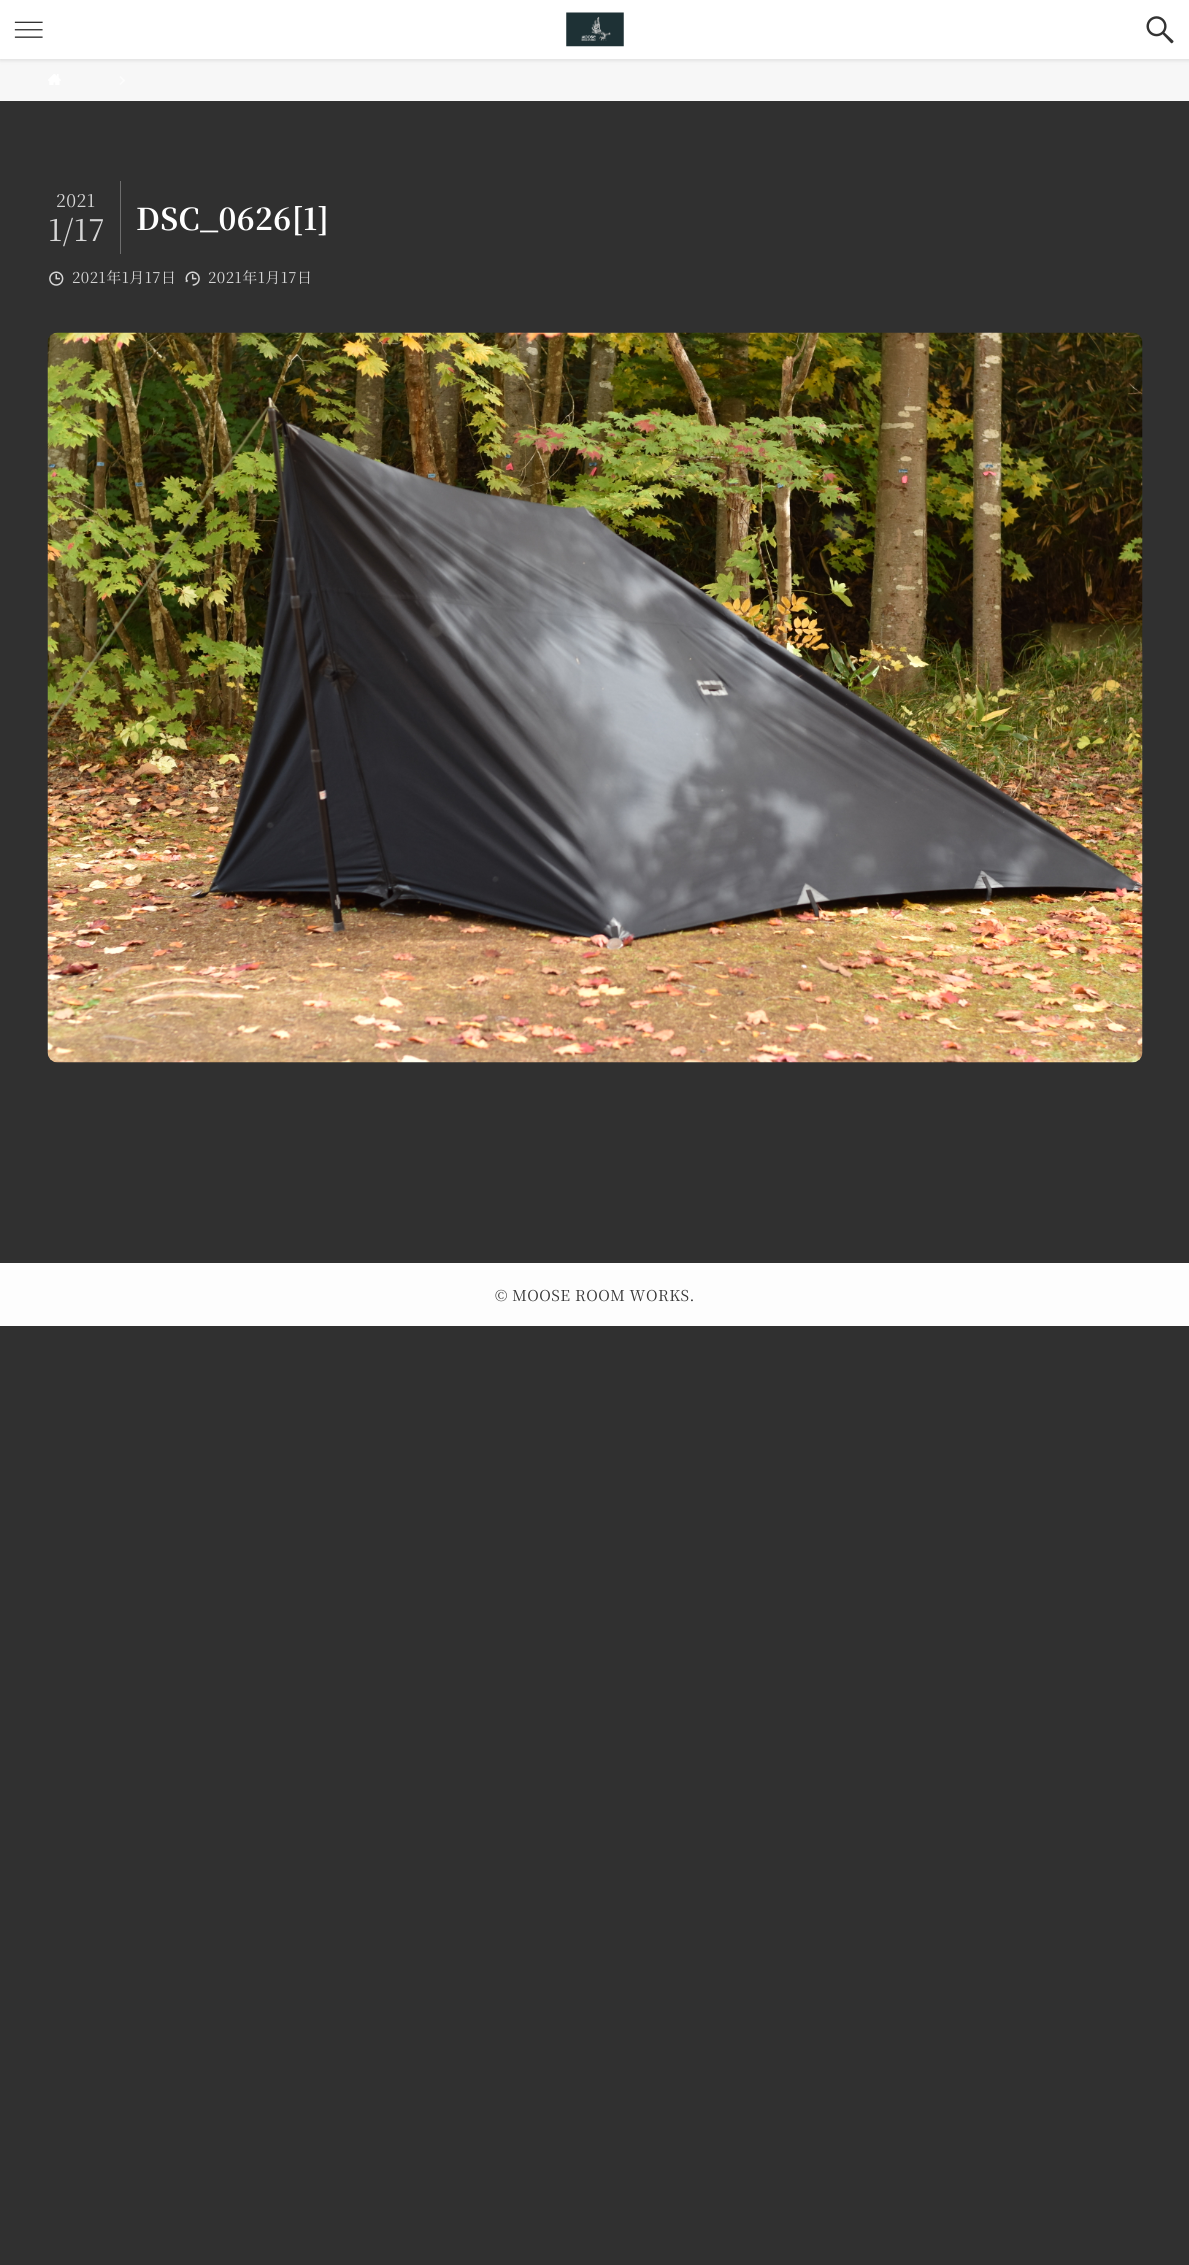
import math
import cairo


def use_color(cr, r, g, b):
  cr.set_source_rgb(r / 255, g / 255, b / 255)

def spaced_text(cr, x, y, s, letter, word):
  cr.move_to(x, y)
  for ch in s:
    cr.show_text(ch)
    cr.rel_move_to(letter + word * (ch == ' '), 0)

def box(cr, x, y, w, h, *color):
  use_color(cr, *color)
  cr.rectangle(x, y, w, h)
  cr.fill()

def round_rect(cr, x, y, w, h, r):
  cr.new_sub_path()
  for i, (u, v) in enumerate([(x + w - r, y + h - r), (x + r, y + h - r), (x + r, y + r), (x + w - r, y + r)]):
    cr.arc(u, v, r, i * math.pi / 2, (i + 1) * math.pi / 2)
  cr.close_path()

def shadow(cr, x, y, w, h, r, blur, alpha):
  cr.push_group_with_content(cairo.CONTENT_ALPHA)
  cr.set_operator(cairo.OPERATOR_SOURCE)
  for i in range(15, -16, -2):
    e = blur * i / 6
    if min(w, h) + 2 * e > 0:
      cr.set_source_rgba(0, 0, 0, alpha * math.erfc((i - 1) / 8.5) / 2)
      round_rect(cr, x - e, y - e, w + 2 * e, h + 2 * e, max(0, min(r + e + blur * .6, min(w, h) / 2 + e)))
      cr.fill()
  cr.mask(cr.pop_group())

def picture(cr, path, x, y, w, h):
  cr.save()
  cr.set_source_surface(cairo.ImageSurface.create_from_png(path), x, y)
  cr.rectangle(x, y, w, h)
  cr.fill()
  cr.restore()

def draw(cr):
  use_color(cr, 48, 48, 48)
  cr.paint()
  box(cr, 0, 59, 1189, 42, 247, 247, 247)
  use_color(cr, 0, 0, 0)
  shadow(cr, 0, 1, 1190, 59, 0, 2.5, 0.12)
  box(cr, 0, 0, 1189, 59, 255, 255, 255)
  picture(cr, "img_01.png", 14, 21, 29, 17)
  picture(cr, "img_02.png", 566, 12, 58, 35)
  picture(cr, "img_03.png", 1146, 16, 28, 28)
  picture(cr, "img_04.png", 48, 74, 13, 11)
  use_color(cr, 253, 253, 253)
  cr.new_path()
  cr.move_to(120.5, 76)
  cr.line_to(125, 80.5)
  cr.line_to(124, 81.5)
  cr.line_to(119.5, 77)
  cr.close_path()
  cr.fill()
  cr.new_path()
  cr.move_to(124, 79.5)
  cr.line_to(125, 80.5)
  cr.line_to(120.5, 85)
  cr.line_to(119.5, 84)
  cr.close_path()
  cr.fill()
  box(cr, 120, 181, 1, 73, 109, 109, 109)
  picture(cr, "img_05.png", 49, 271, 15, 15)
  picture(cr, "img_06.png", 185, 271, 15, 15)
  picture(cr, "img_07.png", 47, 332, 1096, 731)
  box(cr, 0, 1263, 1189, 63, 253, 253, 253)
  cr.select_font_face("Noto Serif JP")
  cr.set_font_size(17.5)
  use_color(cr, 214, 214, 214)
  spaced_text(cr, 56, 207, "2021", 0.5, 0)
  cr.set_font_size(30)
  spaced_text(cr, 48, 241, "1/17", 0.5, 0)
  cr.select_font_face("Noto Serif JP", cairo.FONT_SLANT_NORMAL, cairo.FONT_WEIGHT_BOLD)
  use_color(cr, 255, 255, 255)
  spaced_text(cr, 136, 230, "DSC_0626[1]", 0.5, 0)
  cr.select_font_face("Noto Serif JP")
  cr.set_font_size(15)
  use_color(cr, 214, 214, 214)
  spaced_text(cr, 72, 283, "2021年1月17日", 0.5, 0)
  spaced_text(cr, 208, 283, "2021年1月17日", 0.5, 0)
  use_color(cr, 51, 51, 51)
  spaced_text(cr, 495, 1301, "© MOOSE ROOM WORKS.", 0.5, 0)


surface = cairo.ImageSurface(cairo.FORMAT_RGB24, 1189, 2265)
cr = cairo.Context(surface)
options = cairo.FontOptions()
options.set_hint_metrics(cairo.HINT_METRICS_OFF)
options.set_hint_style(cairo.HINT_STYLE_NONE)
cr.set_font_options(options)
cr.set_miter_limit(4)
draw(cr)
surface.write_to_png("out.png")
